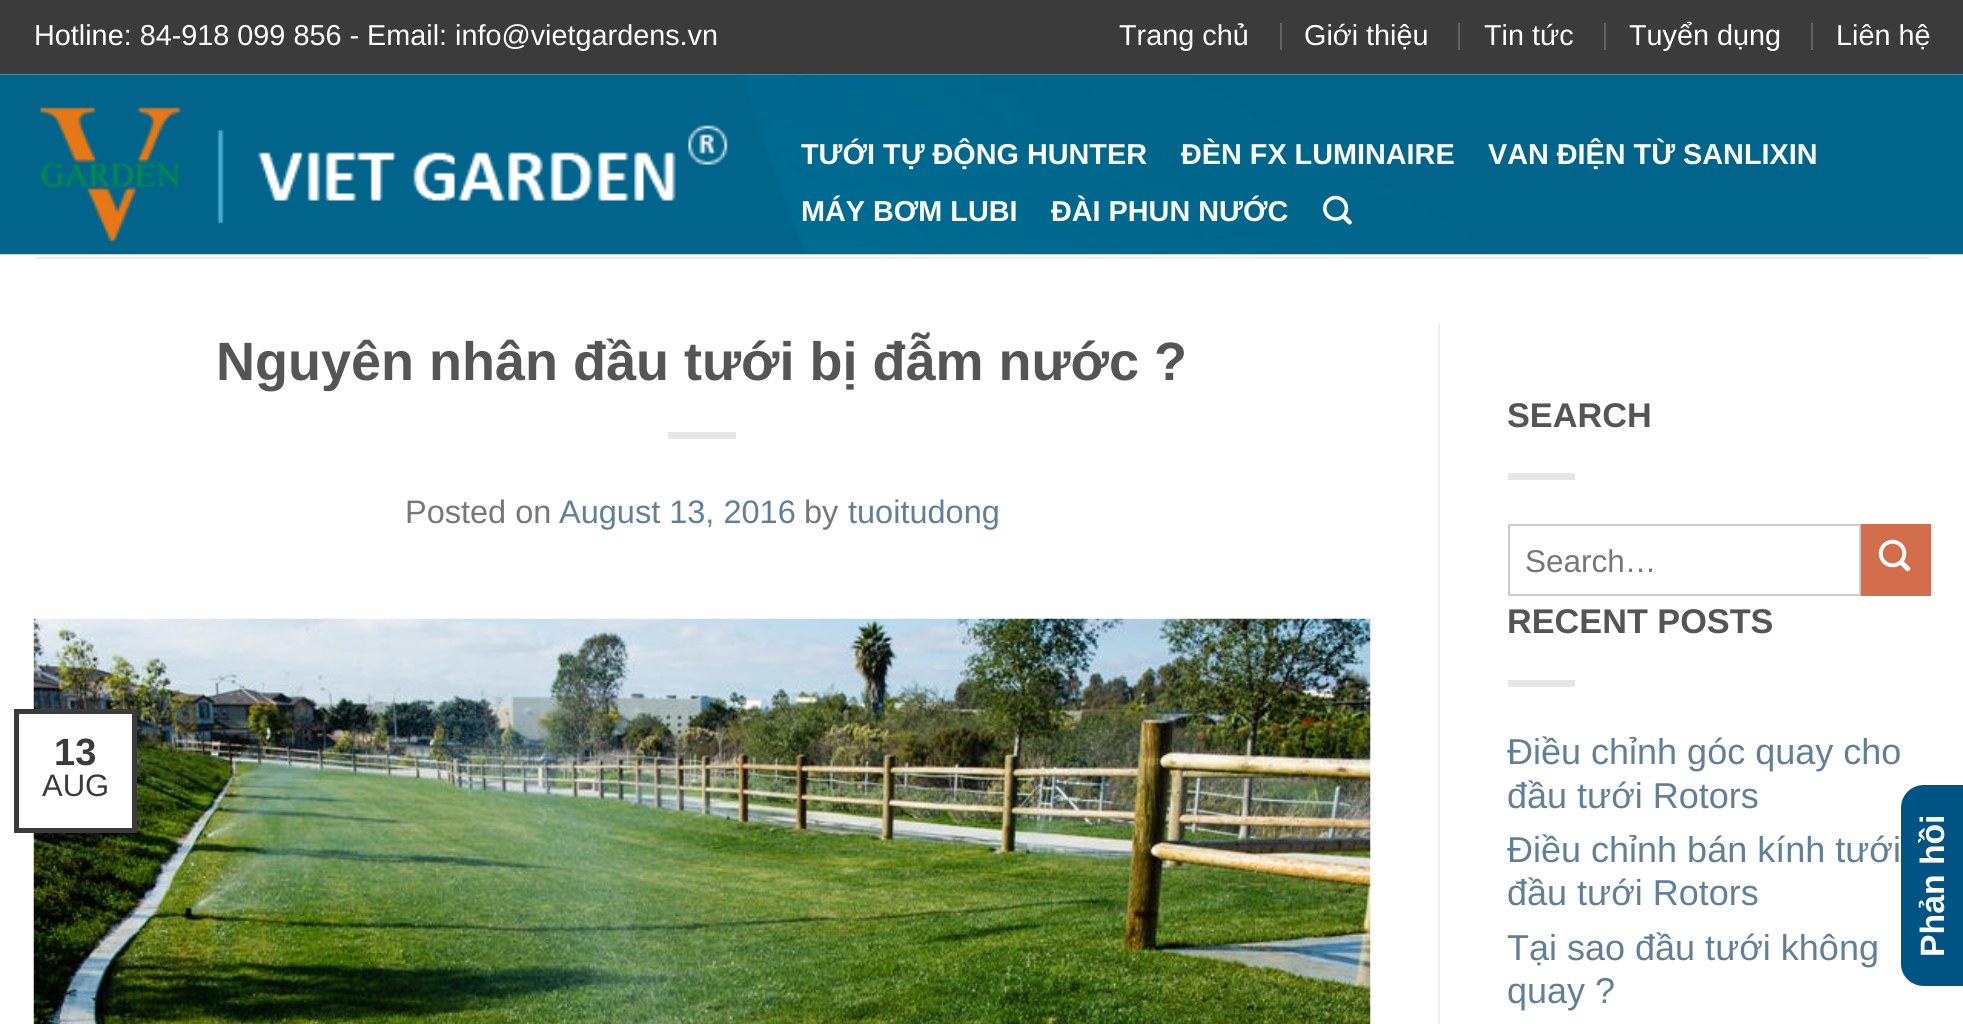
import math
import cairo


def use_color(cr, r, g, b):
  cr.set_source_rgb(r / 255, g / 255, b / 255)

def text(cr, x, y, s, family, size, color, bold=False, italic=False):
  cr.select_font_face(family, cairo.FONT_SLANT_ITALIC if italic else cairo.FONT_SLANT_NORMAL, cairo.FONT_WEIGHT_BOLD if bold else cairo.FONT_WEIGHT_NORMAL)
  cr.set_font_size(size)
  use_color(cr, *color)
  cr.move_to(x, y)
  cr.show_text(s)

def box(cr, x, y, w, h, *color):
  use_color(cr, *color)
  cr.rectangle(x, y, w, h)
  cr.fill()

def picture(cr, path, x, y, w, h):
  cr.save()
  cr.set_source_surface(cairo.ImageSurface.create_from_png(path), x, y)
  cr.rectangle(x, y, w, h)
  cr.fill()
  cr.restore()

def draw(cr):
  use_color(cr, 255, 255, 255)
  cr.paint()
  box(cr, 0, 0, 1963, 74, 59, 59, 59)
  box(cr, 1280, 23, 2, 27, 98, 98, 98)
  box(cr, 1458, 23, 2, 27, 98, 98, 98)
  box(cr, 1604, 23, 2, 27, 98, 98, 98)
  box(cr, 1811, 23, 2, 27, 98, 98, 98)
  picture(cr, "img_01.png", 0, 74, 1963, 181)
  picture(cr, "img_02.png", 40, 107, 688, 135)
  picture(cr, "img_03.png", 1323, 195, 29, 30)
  box(cr, 34, 257, 1897, 2, 238, 238, 238)
  box(cr, 1438, 324, 2, 700, 238, 238, 238)
  box(cr, 668, 432, 68, 7, 230, 230, 230)
  picture(cr, "img_04.png", 33, 618, 1338, 406)
  box(cr, 33, 714, 99, 114, 255, 255, 255)
  cr.rectangle(16.5, 711.5, 118, 119)
  use_color(cr, 59, 59, 59)
  cr.set_line_width(5)
  cr.stroke()
  box(cr, 1508, 473, 67, 7, 230, 230, 230)
  cr.rectangle(1509, 525, 351, 70)
  use_color(cr, 204, 204, 204)
  cr.set_line_width(2)
  cr.stroke()
  box(cr, 1861, 524, 70, 72, 210, 110, 75)
  picture(cr, "img_05.png", 1878, 539, 33, 33)
  box(cr, 1508, 680, 67, 7, 230, 230, 230)
  use_color(cr, 0, 84, 131)
  cr.new_path()
  cr.move_to(1901, 964)
  cr.line_to(1901, 808)
  cr.curve_to(1901, 795, 1911, 785, 1924, 785)
  cr.line_to(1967, 785)
  cr.line_to(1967, 986)
  cr.line_to(1924, 986)
  cr.curve_to(1911, 986, 1901, 976, 1901, 964)
  cr.close_path()
  cr.fill()
  text(cr, 34, 45, "Hotline: 84-918 099 856 - Email: info@vietgardens.vn", "Liberation Sans", 28.8, (255, 255, 255))
  text(cr, 1119, 45, "Trang chủ", "Liberation Sans", 28.8, (255, 255, 255))
  text(cr, 1304, 45, "Giới thiệu", "Liberation Sans", 28.8, (255, 255, 255))
  text(cr, 1484, 45, "Tin tức", "Liberation Sans", 28.8, (255, 255, 255))
  text(cr, 1629, 45, "Tuyển dụng", "Liberation Sans", 28.8, (255, 255, 255))
  text(cr, 1836, 45, "Liên hệ", "Liberation Sans", 28.8, (255, 255, 255))
  text(cr, 801, 164, "TƯỚI TỰ ĐỘNG HUNTER", "Liberation Sans", 28.8, (255, 255, 255), bold=True)
  text(cr, 1181, 164, "ĐÈN FX LUMINAIRE", "Liberation Sans", 28.8, (255, 255, 255), bold=True)
  text(cr, 1488, 164, "VAN ĐIỆN TỪ SANLIXIN", "Liberation Sans", 28.8, (255, 255, 255), bold=True)
  text(cr, 801, 221, "MÁY BƠM LUBI", "Liberation Sans", 28.8, (255, 255, 255), bold=True)
  text(cr, 1051, 221, "ĐÀI PHUN NƯỚC", "Liberation Sans", 28.8, (255, 255, 255), bold=True)
  text(cr, 216, 380, "Nguyên nhân đầu tưới bị đẫm nước ?", "Liberation Sans", 54, (85, 85, 85), bold=True)
  text(cr, 405, 523, "Posted on", "Liberation Sans", 32.5, (119, 119, 119))
  text(cr, 559, 523, "August 13, 2016", "Liberation Sans", 32.5, (98, 127, 154))
  text(cr, 804, 523, "by", "Liberation Sans", 32.5, (119, 119, 119))
  text(cr, 848, 523, "tuoitudong", "Liberation Sans", 32.5, (98, 127, 154))
  text(cr, 54, 765, "13", "Liberation Sans", 38, (59, 59, 59), bold=True)
  text(cr, 42, 796, "AUG", "Liberation Sans", 31, (59, 59, 59))
  text(cr, 1507, 427, "SEARCH", "Liberation Sans", 34.25, (85, 85, 85), bold=True)
  text(cr, 1525, 572, "Search…", "Liberation Sans", 31.5, (119, 119, 119))
  text(cr, 1507, 633, "RECENT POSTS", "Liberation Sans", 34.25, (85, 85, 85), bold=True)
  text(cr, 1507, 764, "Điều chỉnh góc quay cho", "Liberation Sans", 36, (98, 127, 154))
  text(cr, 1507, 808, "đầu tưới Rotors", "Liberation Sans", 36, (98, 127, 154))
  text(cr, 1507, 862, "Điều chỉnh bán kính tưới", "Liberation Sans", 36, (98, 127, 154))
  text(cr, 1507, 905, "đầu tưới Rotors", "Liberation Sans", 36, (98, 127, 154))
  text(cr, 1507, 960, "Tại sao đầu tưới không", "Liberation Sans", 36, (98, 127, 154))
  text(cr, 1507, 1003, "quay ?", "Liberation Sans", 36, (98, 127, 154))
  cr.save()
  cr.translate(1944, 957)
  cr.rotate(-90 * math.pi / 180)
  text(cr, 0, 0, "Phản hồi", "Liberation Sans", 33.75, (255, 255, 255), bold=True)
  cr.restore()


surface = cairo.ImageSurface(cairo.FORMAT_RGB24, 1963, 1024)
cr = cairo.Context(surface)
options = cairo.FontOptions()
options.set_hint_metrics(cairo.HINT_METRICS_OFF)
options.set_hint_style(cairo.HINT_STYLE_NONE)
cr.set_font_options(options)
cr.set_miter_limit(4)
draw(cr)
surface.write_to_png("out.png")
